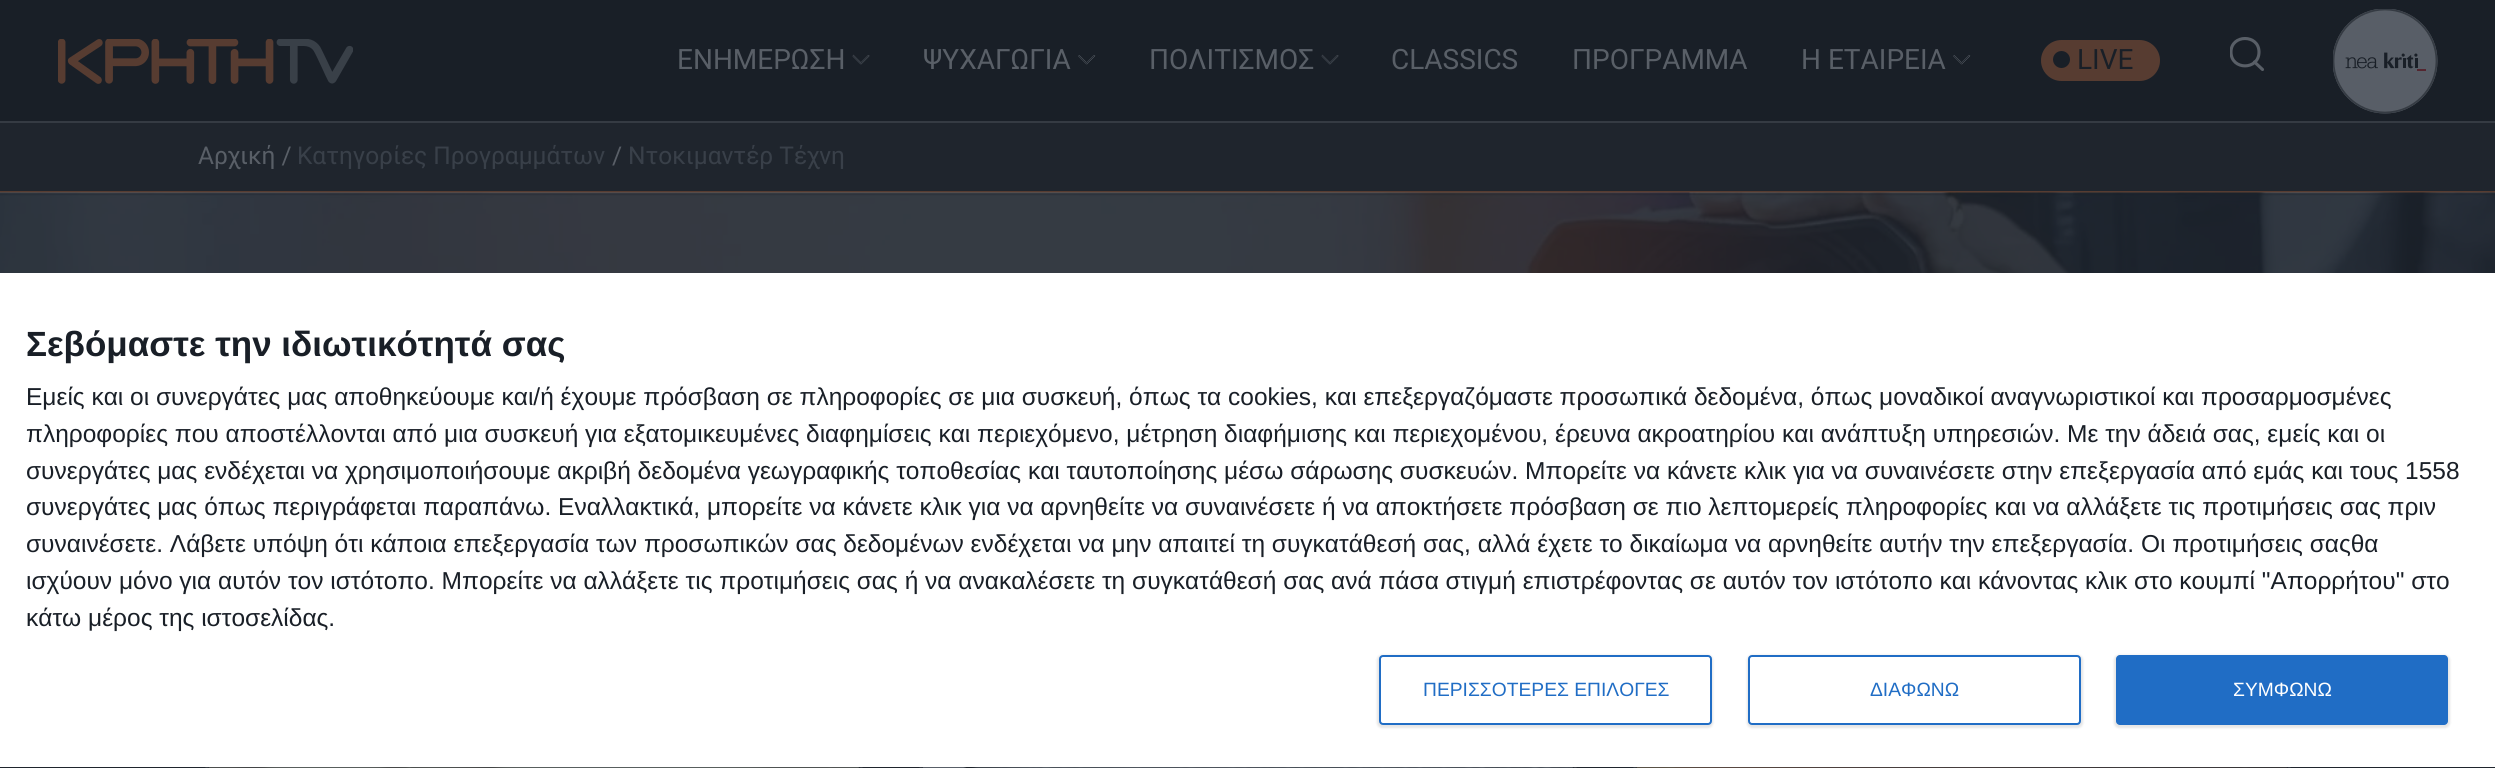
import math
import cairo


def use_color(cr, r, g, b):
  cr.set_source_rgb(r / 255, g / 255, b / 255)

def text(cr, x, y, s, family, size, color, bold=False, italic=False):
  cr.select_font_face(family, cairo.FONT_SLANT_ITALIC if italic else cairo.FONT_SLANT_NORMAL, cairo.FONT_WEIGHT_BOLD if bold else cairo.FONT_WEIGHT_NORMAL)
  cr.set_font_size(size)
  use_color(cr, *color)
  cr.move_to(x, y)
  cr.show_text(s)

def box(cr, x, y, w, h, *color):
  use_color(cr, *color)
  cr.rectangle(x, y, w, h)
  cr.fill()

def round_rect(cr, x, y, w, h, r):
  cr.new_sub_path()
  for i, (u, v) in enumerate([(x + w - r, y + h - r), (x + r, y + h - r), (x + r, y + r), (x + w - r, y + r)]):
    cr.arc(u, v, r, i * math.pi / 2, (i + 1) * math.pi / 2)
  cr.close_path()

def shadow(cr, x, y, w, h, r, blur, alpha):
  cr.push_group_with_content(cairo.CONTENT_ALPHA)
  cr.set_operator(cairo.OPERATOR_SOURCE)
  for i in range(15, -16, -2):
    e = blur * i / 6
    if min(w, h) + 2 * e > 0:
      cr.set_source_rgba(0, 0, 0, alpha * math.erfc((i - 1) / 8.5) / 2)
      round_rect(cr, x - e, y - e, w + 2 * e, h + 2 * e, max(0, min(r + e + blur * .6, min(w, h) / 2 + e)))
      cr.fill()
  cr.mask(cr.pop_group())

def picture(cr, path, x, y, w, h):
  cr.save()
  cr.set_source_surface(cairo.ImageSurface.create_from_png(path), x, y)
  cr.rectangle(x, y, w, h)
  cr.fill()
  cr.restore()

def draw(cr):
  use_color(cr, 31, 37, 45)
  cr.paint()
  box(cr, 0, 0, 2495, 121, 25, 31, 39)
  box(cr, 0, 121, 2495, 2, 53, 59, 67)
  picture(cr, "img_01.png", 58, 39, 295, 45)
  picture(cr, "img_02.png", 852, 54, 18, 11)
  picture(cr, "img_03.png", 1078, 55, 18, 10)
  picture(cr, "img_02.png", 1321, 54, 18, 11)
  picture(cr, "img_03.png", 1953, 55, 18, 10)
  use_color(cr, 87, 60, 49)
  round_rect(cr, 2041, 40, 119, 41, 20.5)
  cr.fill()
  use_color(cr, 25, 31, 39)
  cr.arc(2061.5, 59.5, 8.5, 0, 2 * math.pi)
  cr.fill()
  cr.save()
  cr.rectangle(2230, 37, 35, 35)
  cr.clip()
  cr.new_path()
  cr.move_to(2259, 52)
  cr.curve_to(2259, 70.5, 2231, 70.5, 2231, 52)
  cr.curve_to(2231, 34, 2259, 34, 2259, 52)
  cr.close_path()
  use_color(cr, 89, 95, 103)
  cr.set_line_width(3.1)
  cr.set_line_cap(cairo.LINE_CAP_ROUND)
  cr.set_line_join(cairo.LINE_JOIN_ROUND)
  cr.stroke()
  cr.restore()
  cr.new_path()
  cr.move_to(2262.5, 69.5)
  cr.line_to(2254.5, 62)
  use_color(cr, 89, 95, 103)
  cr.set_line_width(3.1)
  cr.set_line_cap(cairo.LINE_CAP_ROUND)
  cr.set_line_join(cairo.LINE_JOIN_ROUND)
  cr.stroke()
  picture(cr, "img_04.png", 2333, 9, 105, 105)
  box(cr, 0, 191, 2495, 2, 87, 60, 49)
  picture(cr, "img_05.png", 0, 192, 2495, 81)
  round_rect(cr, 199, 755, 670, 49, 34)
  use_color(cr, 53, 59, 67)
  cr.set_line_width(2)
  cr.set_line_cap(cairo.LINE_CAP_BUTT)
  cr.set_line_join(cairo.LINE_JOIN_MITER)
  cr.stroke()
  picture(cr, "img_06.png", 208, 767, 651, 1)
  round_rect(cr, 913, 755, 670, 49, 34)
  cr.stroke()
  picture(cr, "img_07.png", 922, 767, 651, 1)
  round_rect(cr, 1627, 755, 670, 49, 34)
  cr.stroke()
  picture(cr, "img_08.png", 1636, 767, 651, 1)
  box(cr, 0, 273, 2495, 494, 255, 255, 255)
  use_color(cr, 0, 0, 0)
  shadow(cr, 1377, 655, 336, 73, 5, 1, 0.1)
  use_color(cr, 255, 255, 255)
  round_rect(cr, 1380, 656, 331, 68, 3)
  cr.fill_preserve()
  use_color(cr, 32, 109, 197)
  cr.stroke()
  use_color(cr, 0, 0, 0)
  shadow(cr, 1747, 655, 336, 73, 5, 1, 0.1)
  use_color(cr, 255, 255, 255)
  round_rect(cr, 1749, 656, 331, 68, 3)
  cr.fill_preserve()
  use_color(cr, 32, 109, 197)
  cr.stroke()
  use_color(cr, 0, 0, 0)
  shadow(cr, 2114, 655, 336, 73, 5, 1, 0.1)
  use_color(cr, 32, 109, 197)
  round_rect(cr, 2116, 655, 332, 70, 4)
  cr.fill()
  text(cr, 677, 69, "ΕΝΗΜΕΡΩΣΗ", "Roboto", 28, (89, 95, 103))
  text(cr, 923, 69, "ΨΥΧΑΓΩΓΙΑ", "Roboto", 28, (89, 95, 103))
  text(cr, 1149, 69, "ΠΟΛΙΤΙΣΜΟΣ", "Roboto", 28, (89, 95, 103))
  text(cr, 1391, 69, "CLASSICS", "Roboto", 28, (89, 95, 103))
  text(cr, 1572, 69, "ΠΡΟΓΡΑΜΜΑ", "Roboto", 28, (89, 95, 103))
  text(cr, 1801, 69, "Η ΕΤΑΙΡΕΙΑ", "Roboto", 28, (89, 95, 103))
  text(cr, 2077, 69, "LIVE", "Roboto", 28, (25, 31, 39))
  text(cr, 198, 164, "Αρχική /", "Roboto", 24.5, (89, 95, 103))
  text(cr, 297, 164, "Κατηγορίες Προγραμμάτων", "Roboto", 24.5, (57, 64, 73))
  text(cr, 612, 164, "/", "Roboto", 24.5, (89, 95, 103))
  text(cr, 628, 164, "Ντοκιμαντέρ Τέχνη", "Roboto", 24.5, (57, 64, 73))
  text(cr, 26, 356, "Σεβόμαστε την ιδιωτικότητά σας", "Liberation Sans", 35, (25, 31, 39), bold=True)
  text(cr, 26, 405, "Εμείς και οι συνεργάτες μας αποθηκεύουμε και/ή έχουμε πρόσβαση σε πληροφορίες σε μια συσκευή, όπως τα cookies, και επεξεργαζόμαστε προσωπικά δεδομένα, όπως μοναδικοί αναγνωριστικοί και προσαρμοσμένες", "Liberation Sans", 24.5, (25, 31, 39))
  text(cr, 26, 442, "πληροφορίες που αποστέλλονται από μια συσκευή για εξατομικευμένες διαφημίσεις και περιεχόμενο, μέτρηση διαφήμισης και περιεχομένου, έρευνα ακροατηρίου και ανάπτυξη υπηρεσιών. Με την άδειά σας, εμείς και οι", "Liberation Sans", 24.5, (25, 31, 39))
  text(cr, 26, 479, "συνεργάτες μας ενδέχεται να χρησιμοποιήσουμε ακριβή δεδομένα γεωγραφικής τοποθεσίας και ταυτοποίησης μέσω σάρωσης συσκευών. Μπορείτε να κάνετε κλικ για να συναινέσετε στην επεξεργασία από εμάς και τους 1558", "Liberation Sans", 24.5, (25, 31, 39))
  text(cr, 26, 515, "συνεργάτες μας όπως περιγράφεται παραπάνω. Εναλλακτικά, μπορείτε να κάνετε κλικ για να αρνηθείτε να συναινέσετε ή να αποκτήσετε πρόσβαση σε πιο λεπτομερείς πληροφορίες και να αλλάξετε τις προτιμήσεις σας πριν", "Liberation Sans", 24.5, (25, 31, 39))
  text(cr, 26, 552, "συναινέσετε. Λάβετε υπόψη ότι κάποια επεξεργασία των προσωπικών σας δεδομένων ενδέχεται να μην απαιτεί τη συγκατάθεσή σας, αλλά έχετε το δικαίωμα να αρνηθείτε αυτήν την επεξεργασία. Οι προτιμήσεις σαςθα", "Liberation Sans", 24.5, (25, 31, 39))
  text(cr, 26, 589, "ισχύουν μόνο για αυτόν τον ιστότοπο. Μπορείτε να αλλάξετε τις προτιμήσεις σας ή να ανακαλέσετε τη συγκατάθεσή σας ανά πάσα στιγμή επιστρέφοντας σε αυτόν τον ιστότοπο και κάνοντας κλικ στο κουμπί \"Απορρήτου\" στο", "Liberation Sans", 24.5, (25, 31, 39))
  text(cr, 26, 626, "κάτω μέρος της ιστοσελίδας.", "Liberation Sans", 24.5, (25, 31, 39))
  text(cr, 1423, 696, "ΠΕΡΙΣΣΟΤΕΡΕΣ ΕΠΙΛΟΓΕΣ", "Liberation Sans", 19.25, (32, 109, 197))
  text(cr, 1870, 696, "ΔΙΑΦΩΝΩ", "Liberation Sans", 19.25, (32, 109, 197))
  text(cr, 2233, 696, "ΣΥΜΦΩΝΩ", "Liberation Sans", 19.25, (255, 255, 255))


surface = cairo.ImageSurface(cairo.FORMAT_RGB24, 2495, 768)
cr = cairo.Context(surface)
options = cairo.FontOptions()
options.set_hint_metrics(cairo.HINT_METRICS_OFF)
options.set_hint_style(cairo.HINT_STYLE_NONE)
cr.set_font_options(options)
cr.set_miter_limit(4)
draw(cr)
surface.write_to_png("out.png")
